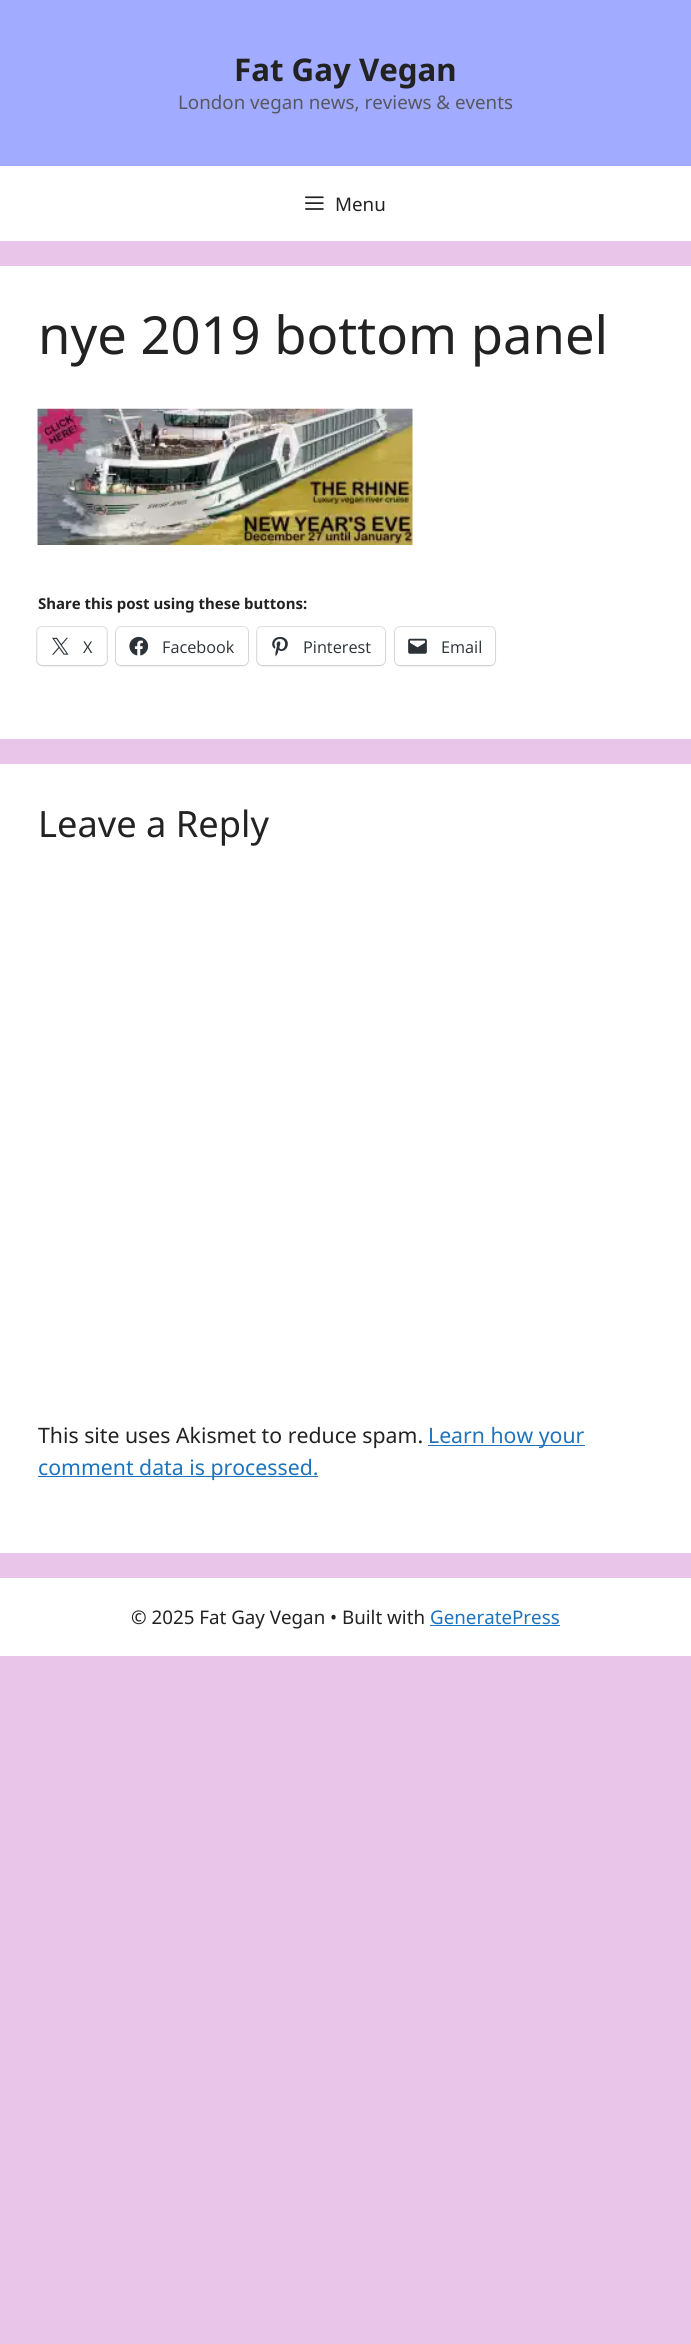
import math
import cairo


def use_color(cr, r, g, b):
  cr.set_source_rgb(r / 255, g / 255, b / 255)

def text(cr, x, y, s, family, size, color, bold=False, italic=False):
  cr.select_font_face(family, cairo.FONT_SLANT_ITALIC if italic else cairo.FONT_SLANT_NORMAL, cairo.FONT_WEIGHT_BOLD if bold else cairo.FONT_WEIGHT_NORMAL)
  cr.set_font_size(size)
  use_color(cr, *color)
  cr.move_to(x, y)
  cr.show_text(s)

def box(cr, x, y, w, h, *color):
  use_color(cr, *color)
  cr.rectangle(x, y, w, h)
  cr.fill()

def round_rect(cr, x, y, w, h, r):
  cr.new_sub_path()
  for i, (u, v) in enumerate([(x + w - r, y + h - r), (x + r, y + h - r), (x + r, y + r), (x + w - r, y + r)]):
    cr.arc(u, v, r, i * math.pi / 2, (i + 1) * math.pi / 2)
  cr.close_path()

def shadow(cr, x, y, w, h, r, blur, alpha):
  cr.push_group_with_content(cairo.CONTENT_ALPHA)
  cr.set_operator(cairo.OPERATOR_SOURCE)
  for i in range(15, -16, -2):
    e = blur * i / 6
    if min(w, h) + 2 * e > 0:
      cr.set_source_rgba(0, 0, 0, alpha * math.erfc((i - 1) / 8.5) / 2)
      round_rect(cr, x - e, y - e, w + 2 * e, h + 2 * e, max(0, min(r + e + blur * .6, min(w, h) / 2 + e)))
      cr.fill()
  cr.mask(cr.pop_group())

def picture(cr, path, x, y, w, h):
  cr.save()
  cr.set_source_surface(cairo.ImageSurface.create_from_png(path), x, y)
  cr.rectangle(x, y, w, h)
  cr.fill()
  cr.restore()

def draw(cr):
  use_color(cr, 234, 197, 234)
  cr.paint()
  box(cr, 0, 0, 691, 166, 161, 171, 255)
  box(cr, 0, 166, 691, 75, 255, 255, 255)
  picture(cr, "img_01.png", 305, 196, 19, 14)
  box(cr, 0, 266, 691, 473, 255, 255, 255)
  picture(cr, "img_02.png", 37, 408, 376, 137)
  round_rect(cr, 36.5, 626.5, 71, 39, 5.5)
  use_color(cr, 224, 224, 224)
  cr.set_line_width(1)
  cr.stroke()
  use_color(cr, 0, 0, 0)
  shadow(cr, 38, 629, 68, 37, 5, 1, 0.12)
  use_color(cr, 255, 255, 255)
  round_rect(cr, 38, 628, 68, 37, 5)
  cr.fill()
  picture(cr, "img_03.png", 52, 637, 17, 18)
  round_rect(cr, 115.5, 626.5, 133, 39, 5.5)
  use_color(cr, 224, 224, 224)
  cr.stroke()
  use_color(cr, 0, 0, 0)
  shadow(cr, 116, 629, 132, 37, 5, 1, 0.12)
  use_color(cr, 255, 255, 255)
  round_rect(cr, 116, 628, 132, 37, 5)
  cr.fill()
  picture(cr, "img_04.png", 129, 636, 20, 20)
  round_rect(cr, 256.5, 626.5, 129, 39, 5.5)
  use_color(cr, 224, 224, 224)
  cr.stroke()
  use_color(cr, 0, 0, 0)
  shadow(cr, 258, 629, 127, 37, 5, 1, 0.12)
  use_color(cr, 255, 255, 255)
  round_rect(cr, 258, 628, 127, 37, 5)
  cr.fill()
  picture(cr, "img_05.png", 272, 636, 16, 21)
  round_rect(cr, 394.5, 626.5, 101, 39, 5.5)
  use_color(cr, 224, 224, 224)
  cr.stroke()
  use_color(cr, 0, 0, 0)
  shadow(cr, 395, 629, 100, 37, 5, 1, 0.12)
  use_color(cr, 255, 255, 255)
  round_rect(cr, 395, 628, 100, 37, 5)
  cr.fill()
  picture(cr, "img_06.png", 408, 638, 19, 16)
  box(cr, 0, 764, 691, 789, 255, 255, 255)
  box(cr, 428, 1445, 157, 1, 30, 115, 190)
  box(cr, 38, 1476, 280, 1, 30, 115, 190)
  box(cr, 0, 1578, 691, 78, 255, 255, 255)
  box(cr, 430, 1625, 130, 1, 30, 115, 190)
  text(cr, 234, 81, "Fat Gay Vegan", "Noto Sans", 31.25, (34, 34, 34), bold=True)
  text(cr, 178, 109, "London vegan news, reviews & events", "Noto Sans", 18.75, (87, 87, 96))
  text(cr, 335, 211, "Menu", "Noto Sans", 18.75, (34, 34, 34))
  text(cr, 38, 354, "nye 2019 bottom panel", "Noto Sans", 52.5, (34, 34, 34))
  text(cr, 38, 609, "Share this post using these buttons:", "Noto Sans", 15, (34, 34, 34), bold=True)
  text(cr, 83, 653, "X", "Open Sans", 16.25, (44, 51, 56))
  text(cr, 162, 653, "Facebook", "Open Sans", 16.25, (44, 51, 56))
  text(cr, 303, 653, "Pinterest", "Open Sans", 16.25, (44, 51, 56))
  text(cr, 441, 653, "Email", "Open Sans", 16.25, (44, 51, 56))
  text(cr, 38, 837, "Leave a Reply", "Noto Sans", 36.25, (34, 34, 34))
  text(cr, 38, 1443, "This site uses Akismet to reduce spam.", "Noto Sans", 21.25, (34, 34, 34))
  text(cr, 428, 1443, "Learn how your", "Noto Sans", 21.25, (30, 115, 190))
  text(cr, 38, 1475, "comment data is processed.", "Noto Sans", 21.25, (30, 115, 190))
  text(cr, 131, 1624, "© 2025 Fat Gay Vegan • Built with", "Noto Sans", 18.75, (34, 34, 34))
  text(cr, 430, 1624, "GeneratePress", "Noto Sans", 18.75, (30, 115, 190))


surface = cairo.ImageSurface(cairo.FORMAT_RGB24, 691, 2344)
cr = cairo.Context(surface)
options = cairo.FontOptions()
options.set_hint_metrics(cairo.HINT_METRICS_OFF)
options.set_hint_style(cairo.HINT_STYLE_NONE)
cr.set_font_options(options)
cr.set_miter_limit(4)
draw(cr)
surface.write_to_png("out.png")
